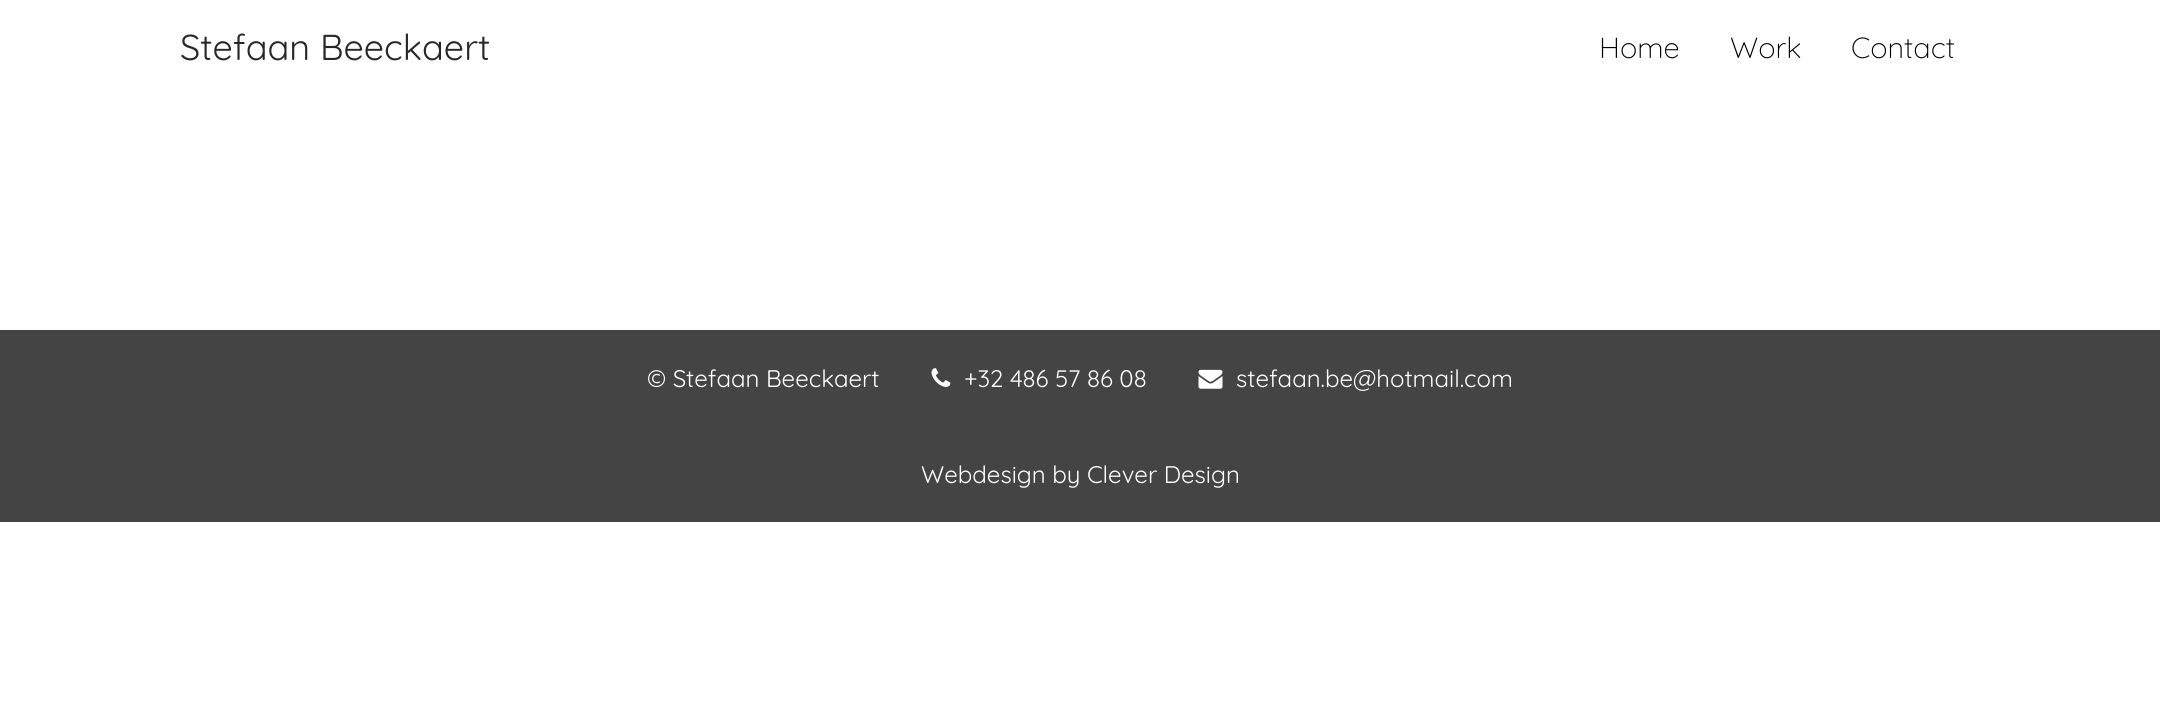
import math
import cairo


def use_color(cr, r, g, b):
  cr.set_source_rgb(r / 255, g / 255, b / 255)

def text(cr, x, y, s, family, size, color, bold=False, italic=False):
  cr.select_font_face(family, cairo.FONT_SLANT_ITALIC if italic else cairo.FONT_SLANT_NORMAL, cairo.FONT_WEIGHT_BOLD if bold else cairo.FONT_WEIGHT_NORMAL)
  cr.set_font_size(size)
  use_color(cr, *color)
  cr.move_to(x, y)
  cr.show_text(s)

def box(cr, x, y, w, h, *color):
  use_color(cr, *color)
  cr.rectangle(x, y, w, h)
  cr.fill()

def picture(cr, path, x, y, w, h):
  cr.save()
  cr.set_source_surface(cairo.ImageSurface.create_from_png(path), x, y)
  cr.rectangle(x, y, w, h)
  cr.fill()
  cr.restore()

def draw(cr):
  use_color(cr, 255, 255, 255)
  cr.paint()
  box(cr, 0, 330, 2160, 192, 68, 68, 68)
  picture(cr, "img_01.png", 931, 368, 20, 19)
  picture(cr, "img_02.png", 1198, 369, 25, 20)
  text(cr, 180, 60, "Stefaan Beeckaert", "Quicksand", 36, (39, 39, 39))
  text(cr, 1599, 58, "Home", "Quicksand Light", 29, (0, 0, 0))
  text(cr, 1730, 58, "Work", "Quicksand Light", 29, (0, 0, 0))
  text(cr, 1851, 58, "Contact", "Quicksand Light", 29, (0, 0, 0))
  text(cr, 647, 387, "© Stefaan Beeckaert", "Quicksand", 24, (255, 255, 255))
  text(cr, 964, 387, "+32 486 57 86 08", "Quicksand", 24, (255, 255, 255))
  text(cr, 1236, 387, "stefaan.be@hotmail.com", "Quicksand", 24, (255, 255, 255))
  text(cr, 921, 483, "Webdesign by Clever Design", "Quicksand", 24, (255, 255, 255))


surface = cairo.ImageSurface(cairo.FORMAT_RGB24, 2160, 712)
cr = cairo.Context(surface)
options = cairo.FontOptions()
options.set_hint_metrics(cairo.HINT_METRICS_OFF)
options.set_hint_style(cairo.HINT_STYLE_NONE)
cr.set_font_options(options)
cr.set_miter_limit(4)
draw(cr)
surface.write_to_png("out.png")
